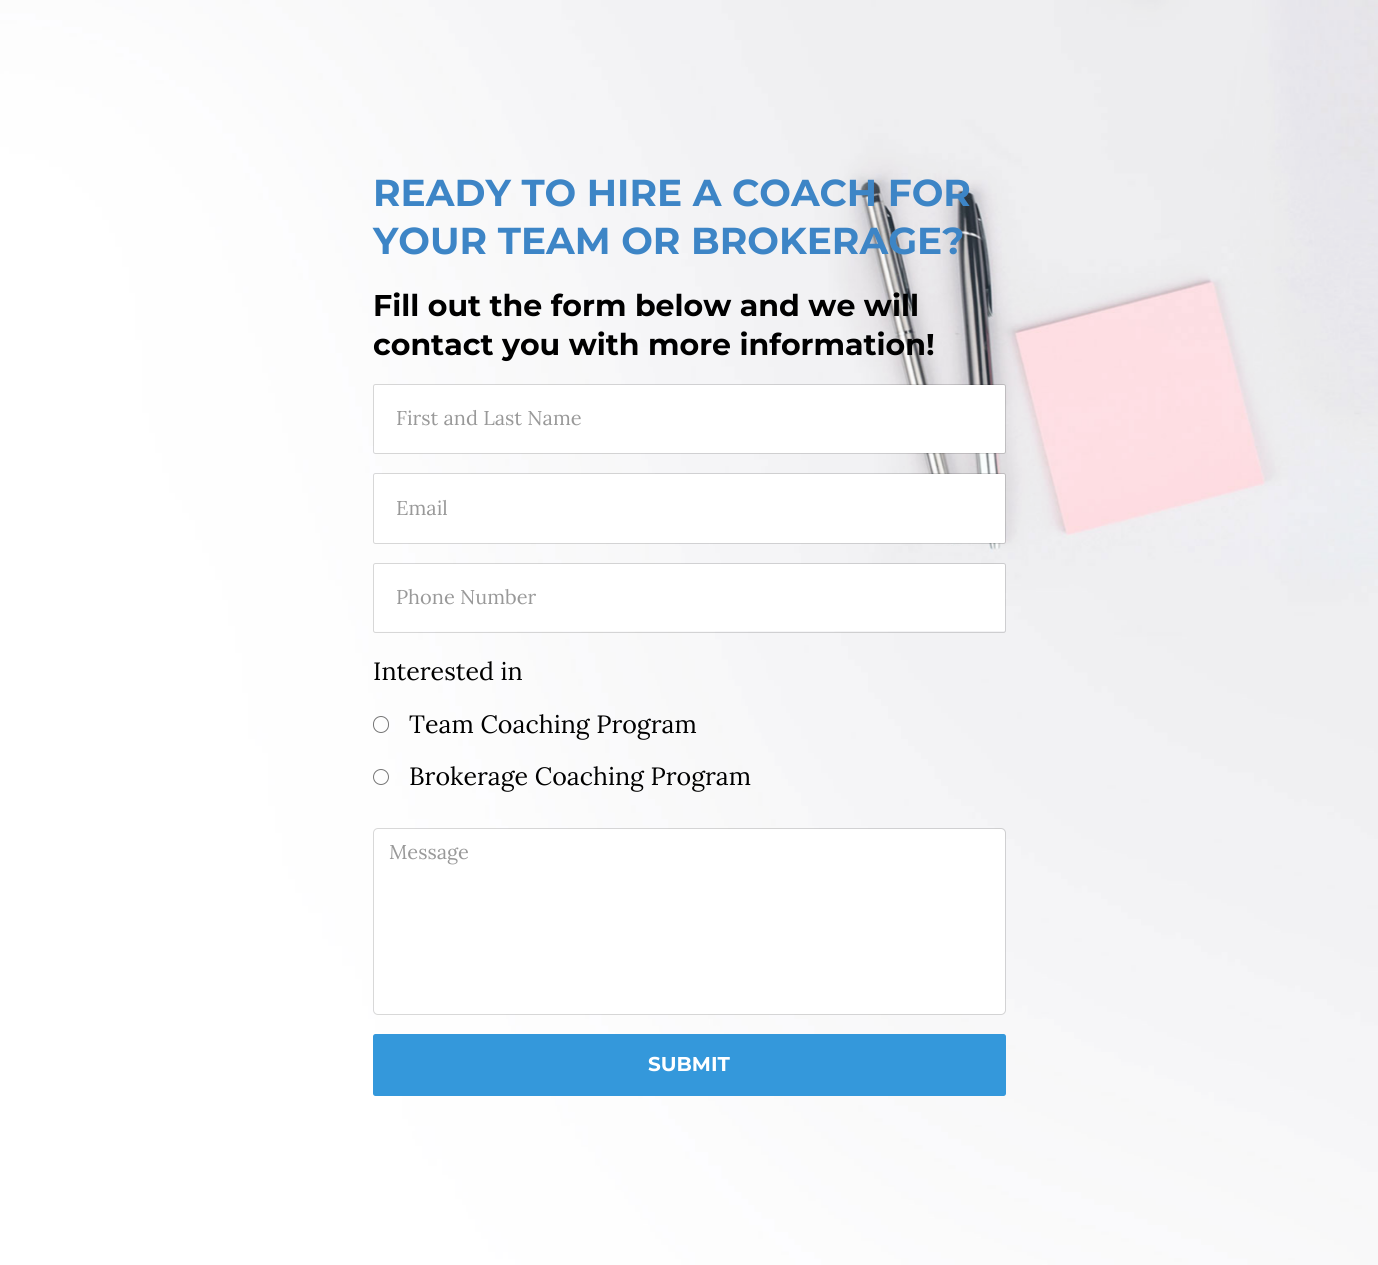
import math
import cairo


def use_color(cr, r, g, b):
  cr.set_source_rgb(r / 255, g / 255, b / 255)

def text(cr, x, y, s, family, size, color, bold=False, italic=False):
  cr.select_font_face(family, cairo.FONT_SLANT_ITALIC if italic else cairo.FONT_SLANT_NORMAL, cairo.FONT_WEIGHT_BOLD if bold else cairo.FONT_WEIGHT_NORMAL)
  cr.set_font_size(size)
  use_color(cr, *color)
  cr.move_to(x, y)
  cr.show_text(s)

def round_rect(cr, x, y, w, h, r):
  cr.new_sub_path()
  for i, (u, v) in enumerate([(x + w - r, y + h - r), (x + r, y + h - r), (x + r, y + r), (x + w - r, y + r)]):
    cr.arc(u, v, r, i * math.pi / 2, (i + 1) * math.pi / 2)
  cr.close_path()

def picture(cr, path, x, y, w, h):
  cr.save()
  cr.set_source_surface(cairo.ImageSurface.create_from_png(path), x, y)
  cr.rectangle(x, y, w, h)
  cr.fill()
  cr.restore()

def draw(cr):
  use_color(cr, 255, 255, 255)
  cr.paint()
  picture(cr, "img_01.png", 0, 0, 1378, 1265)
  use_color(cr, 255, 255, 255)
  round_rect(cr, 374, 385, 631, 68, 1)
  cr.fill()
  round_rect(cr, 373.5, 384.5, 632, 69, 2)
  cr.set_source_rgba(0, 0, 0, 0.15)
  cr.set_line_width(1)
  cr.stroke()
  use_color(cr, 255, 255, 255)
  round_rect(cr, 374, 474, 631, 69, 1)
  cr.fill()
  round_rect(cr, 373.5, 473.5, 632, 70, 2)
  cr.set_source_rgba(0, 0, 0, 0.15)
  cr.stroke()
  use_color(cr, 255, 255, 255)
  round_rect(cr, 374, 564, 631, 67, 1)
  cr.fill()
  round_rect(cr, 373.5, 563.5, 632, 69, 2)
  cr.set_source_rgba(0, 0, 0, 0.15)
  cr.stroke()
  round_rect(cr, 373.5, 716.5, 15, 16, 7.5)
  use_color(cr, 118, 118, 118)
  cr.stroke()
  cr.arc(381, 777, 7.5, 0, 2 * math.pi)
  cr.stroke()
  use_color(cr, 255, 255, 255)
  round_rect(cr, 374, 829, 631, 185, 4)
  cr.fill()
  round_rect(cr, 373.5, 828.5, 632, 186, 4.5)
  cr.set_source_rgba(0, 0, 0, 0.15)
  cr.stroke()
  use_color(cr, 52, 152, 219)
  round_rect(cr, 374.5, 1035.5, 630, 59, 1)
  cr.fill_preserve()
  cr.set_line_width(3)
  cr.stroke()
  text(cr, 373, 206, "READY TO HIRE A COACH FOR", "Montserrat", 37.5, (61, 133, 198), bold=True)
  text(cr, 373, 254, "YOUR TEAM OR BROKERAGE?", "Montserrat", 37.5, (61, 133, 198), bold=True)
  text(cr, 373, 316, "Fill out the form below and we will", "Montserrat", 30, (0, 0, 0), bold=True)
  text(cr, 373, 355, "contact you with more information!", "Montserrat", 30, (0, 0, 0), bold=True)
  text(cr, 396, 425, "First and Last Name", "Lora", 20, (153, 153, 153))
  text(cr, 396, 515, "Email", "Lora", 20, (153, 153, 153))
  text(cr, 396, 604, "Phone Number", "Lora", 20, (153, 153, 153))
  text(cr, 373, 680, "Interested in", "Lora", 25, (0, 0, 0))
  text(cr, 409, 733, "Team Coaching Program", "Lora", 25, (0, 0, 0))
  text(cr, 409, 785, "Brokerage Coaching Program", "Lora", 25, (0, 0, 0))
  text(cr, 389, 859, "Message", "Lora", 20, (153, 153, 153))
  text(cr, 648, 1071, "SUBMIT", "Montserrat", 20, (255, 255, 255), bold=True)


surface = cairo.ImageSurface(cairo.FORMAT_RGB24, 1378, 1265)
cr = cairo.Context(surface)
options = cairo.FontOptions()
options.set_hint_metrics(cairo.HINT_METRICS_OFF)
options.set_hint_style(cairo.HINT_STYLE_NONE)
cr.set_font_options(options)
cr.set_miter_limit(4)
draw(cr)
surface.write_to_png("out.png")
